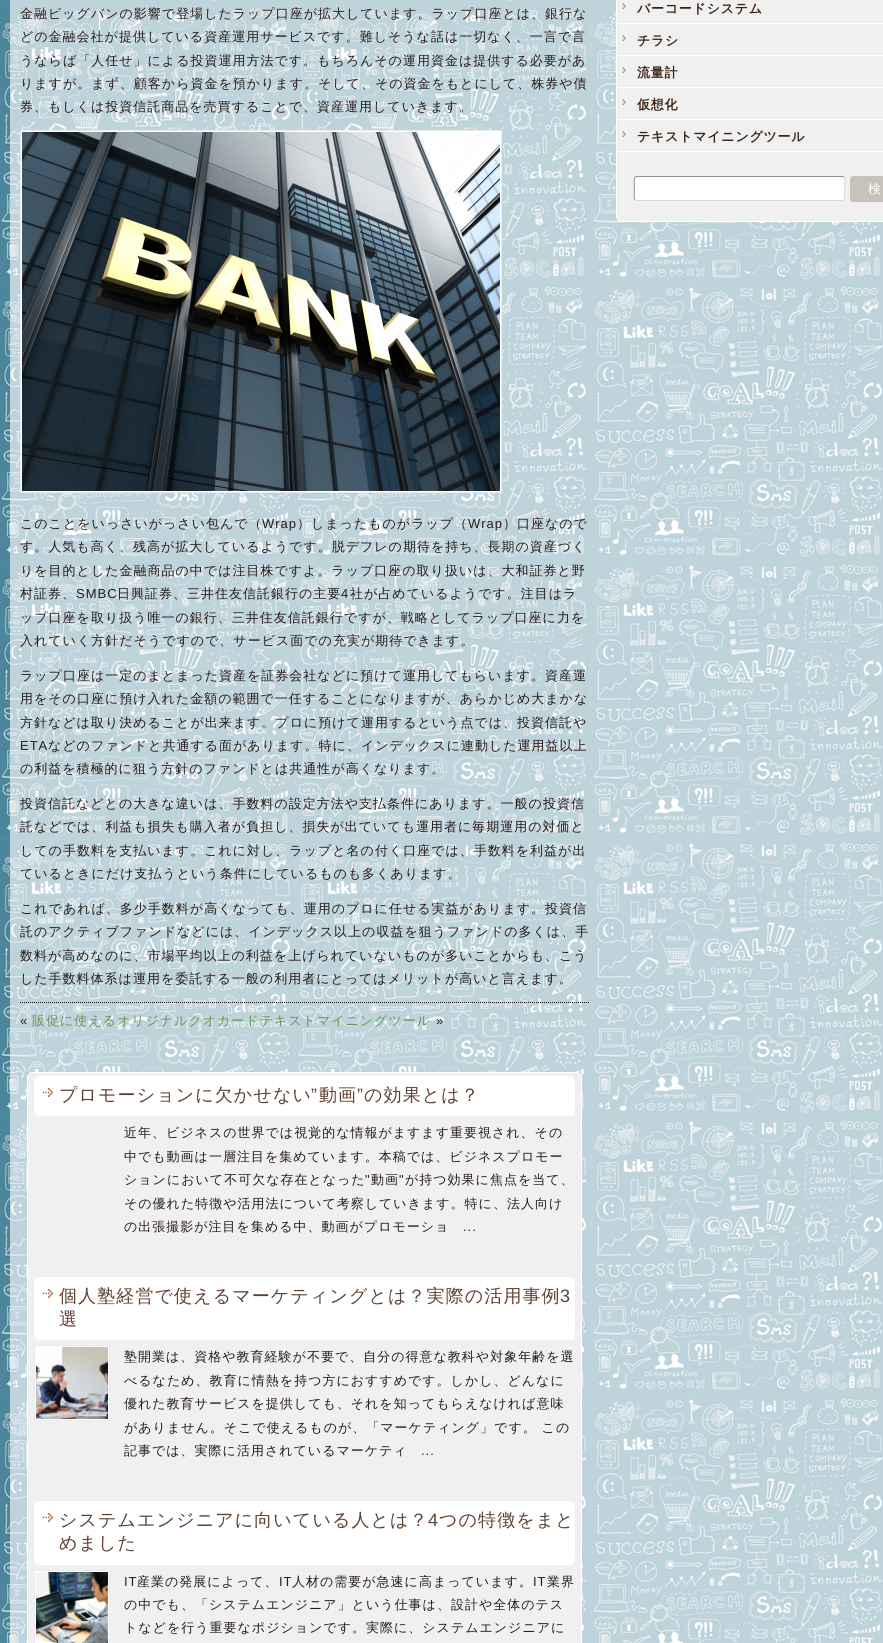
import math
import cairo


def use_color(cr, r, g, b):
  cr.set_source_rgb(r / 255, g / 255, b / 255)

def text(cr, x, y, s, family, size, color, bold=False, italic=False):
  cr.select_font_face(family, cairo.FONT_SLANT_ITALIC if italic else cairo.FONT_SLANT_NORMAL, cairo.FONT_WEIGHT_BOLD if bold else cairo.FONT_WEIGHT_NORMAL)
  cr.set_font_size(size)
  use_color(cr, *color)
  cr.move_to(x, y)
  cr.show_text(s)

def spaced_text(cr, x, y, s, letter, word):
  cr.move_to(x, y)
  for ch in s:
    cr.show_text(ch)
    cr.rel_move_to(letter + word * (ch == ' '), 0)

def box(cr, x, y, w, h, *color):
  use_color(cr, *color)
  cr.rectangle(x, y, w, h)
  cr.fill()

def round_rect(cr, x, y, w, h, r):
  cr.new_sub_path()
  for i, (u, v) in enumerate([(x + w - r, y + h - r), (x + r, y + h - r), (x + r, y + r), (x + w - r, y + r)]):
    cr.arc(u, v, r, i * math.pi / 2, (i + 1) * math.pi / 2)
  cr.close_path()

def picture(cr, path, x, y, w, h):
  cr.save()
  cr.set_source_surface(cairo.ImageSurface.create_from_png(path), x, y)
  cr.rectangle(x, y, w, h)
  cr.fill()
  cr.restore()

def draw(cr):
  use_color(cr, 255, 255, 255)
  cr.paint()
  picture(cr, "img_01.png", 0, 0, 883, 1643)
  use_color(cr, 255, 255, 255)
  cr.rectangle(20.5, 130.5, 481, 362)
  cr.fill_preserve()
  use_color(cr, 234, 236, 236)
  cr.set_line_width(1)
  cr.stroke()
  picture(cr, "img_02.png", 22, 132, 478, 359)
  cr.new_path()
  cr.move_to(20, 1002.5)
  cr.line_to(590, 1002.5)
  use_color(cr, 17, 17, 17)
  cr.set_dash([1, 1])
  cr.stroke()
  use_color(cr, 240, 240, 240)
  round_rect(cr, 27.5, 1072.5, 554, 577, 5.5)
  cr.fill_preserve()
  use_color(cr, 255, 255, 255)
  cr.set_dash([])
  cr.stroke()
  round_rect(cr, 34, 1076, 541, 40, 6)
  cr.fill()
  picture(cr, "img_03.png", 43, 1088, 10, 9)
  cr.new_path()
  cr.move_to(34, 1115.5)
  cr.line_to(575, 1115.5)
  cr.set_dash([1, 1])
  cr.stroke()
  round_rect(cr, 34, 1277, 541, 63, 6)
  cr.fill()
  picture(cr, "img_03.png", 43, 1289, 10, 9)
  cr.new_path()
  cr.move_to(34, 1339.5)
  cr.line_to(575, 1339.5)
  cr.stroke()
  cr.rectangle(34.5, 1345.5, 75, 75)
  cr.fill_preserve()
  use_color(cr, 234, 236, 236)
  cr.set_dash([])
  cr.stroke()
  picture(cr, "img_04.png", 36, 1347, 72, 72)
  use_color(cr, 255, 255, 255)
  round_rect(cr, 34, 1501, 541, 64, 6)
  cr.fill()
  picture(cr, "img_03.png", 43, 1513, 10, 9)
  cr.new_path()
  cr.move_to(34, 1564.5)
  cr.line_to(575, 1564.5)
  cr.set_dash([1, 1])
  cr.stroke()
  cr.rectangle(34.5, 1570.5, 75, 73)
  cr.fill_preserve()
  use_color(cr, 234, 236, 236)
  cr.set_dash([])
  cr.stroke()
  picture(cr, "img_05.png", 36, 1572, 72, 71)
  use_color(cr, 240, 240, 240)
  round_rect(cr, 616.5, -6.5, 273, 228, 5.5)
  cr.fill_preserve()
  use_color(cr, 255, 255, 255)
  cr.stroke()
  picture(cr, "img_06.png", 621, 2, 6, 9)
  box(cr, 617, 23, 266, 1, 255, 255, 255)
  picture(cr, "img_06.png", 621, 34, 6, 9)
  box(cr, 617, 55, 266, 1, 255, 255, 255)
  picture(cr, "img_06.png", 621, 66, 6, 9)
  box(cr, 617, 87, 266, 1, 255, 255, 255)
  picture(cr, "img_06.png", 621, 98, 6, 9)
  box(cr, 617, 119, 266, 1, 255, 255, 255)
  picture(cr, "img_06.png", 621, 130, 6, 9)
  box(cr, 617, 151, 266, 1, 255, 255, 255)
  round_rect(cr, 634, 176, 211, 25, 3)
  cr.fill()
  cr.new_path()
  cr.move_to(844, 177)
  cr.curve_to(845.5, 179, 844.5, 189, 844.5, 191.5)
  cr.curve_to(844.5, 193.5, 846, 200.5, 842, 200.5)
  cr.line_to(637, 200.5)
  cr.line_to(635, 200)
  use_color(cr, 216, 216, 216)
  cr.stroke()
  cr.new_path()
  cr.move_to(635, 200)
  cr.curve_to(633.5, 198, 634.5, 188, 634.5, 185.5)
  cr.curve_to(634.5, 183.5, 633, 176.5, 637, 176.5)
  cr.line_to(842, 176.5)
  cr.line_to(844, 177)
  use_color(cr, 144, 144, 144)
  cr.stroke()
  use_color(cr, 200, 195, 184)
  round_rect(cr, 850, 176, 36, 26, 3)
  cr.fill()
  cr.select_font_face("WenQuanYi Zen Hei Medium")
  cr.set_font_size(13)
  use_color(cr, 39, 27, 24)
  spaced_text(cr, 20, 18, "金融ビッグバンの影響で登場したラップ口座が拡大しています。ラップ口座とは、銀行な", 1, 0)
  spaced_text(cr, 20, 41, "どの金融会社が提供している資産運用サービスです。難しそうな話は一切なく、一言で言", 1, 0)
  spaced_text(cr, 20, 65, "うならば「人任せ」による投資運用方法です。もちろんその運用資金は提供する必要があ", 1, 0)
  spaced_text(cr, 20, 88, "りますが。まず、顧客から資金を預かります。そして、その資金をもとにして、株券や債", 1, 0)
  spaced_text(cr, 20, 111, "券、もしくは投資信託商品を売買することで、資産運用していきます。", 1, 0)
  spaced_text(cr, 20, 528, "このことをいっさいがっさい包んで（", 1, 0)
  cr.select_font_face("Liberation Sans")
  spaced_text(cr, 262, 528, "Wrap", 1, 0)
  cr.select_font_face("WenQuanYi Zen Hei Medium")
  spaced_text(cr, 297, 528, "）しまったものがラップ（", 1, 0)
  cr.select_font_face("Liberation Sans")
  spaced_text(cr, 468, 528, "Wrap", 1, 0)
  cr.select_font_face("WenQuanYi Zen Hei Medium")
  spaced_text(cr, 503, 528, "）口座なので", 1, 0)
  spaced_text(cr, 20, 551, "す。人気も高く、残高が拡大しているようです。脱デフレの期待を持ち、長期の資産づく", 1, 0)
  spaced_text(cr, 20, 575, "りを目的とした金融商品の中では注目株ですよ。ラップ口座の取り扱いは、大和証券と野", 1, 0)
  spaced_text(cr, 20, 598, "村証券、", 1, 0)
  cr.select_font_face("Liberation Sans")
  spaced_text(cr, 76, 598, "SMBC", 1, 0)
  cr.select_font_face("WenQuanYi Zen Hei Medium")
  spaced_text(cr, 117, 598, "日興証券、三井住友信託銀行の主要", 1, 0)
  cr.select_font_face("Liberation Sans")
  spaced_text(cr, 341, 598, "4", 1, 0)
  cr.select_font_face("WenQuanYi Zen Hei Medium")
  spaced_text(cr, 350, 598, "社が占めているようです。注目はラ", 1, 0)
  spaced_text(cr, 20, 622, "ップ口座を取り扱う唯一の銀行、三井住友信託銀行ですが、戦略としてラップ口座に力を", 1, 0)
  spaced_text(cr, 20, 645, "入れていく方針だそうですので、サービス面での充実が期待できます。", 1, 0)
  spaced_text(cr, 20, 680, "ラップ口座は一定のまとまった資産を証券会社などに預けて運用してもらいます。資産運", 1, 0)
  spaced_text(cr, 20, 703, "用をその口座に預け入れた金額の範囲で一任することになりますが、あらかじめ大まかな", 1, 0)
  spaced_text(cr, 20, 727, "方針などは取り決めることが出来ます。プロに預けて運用するという点では、投資信託や", 1, 0)
  cr.select_font_face("Liberation Sans")
  spaced_text(cr, 20, 750, "ETA", 1, 0)
  cr.select_font_face("WenQuanYi Zen Hei Medium")
  spaced_text(cr, 48, 750, "などのファンドと共通する面があります。特に、インデックスに連動した運用益以上", 1, 0)
  spaced_text(cr, 20, 773, "の利益を積極的に狙う方針のファンドとは共通性が高くなります。", 1, 0)
  spaced_text(cr, 20, 808, "投資信託などとの大きな違いは、手数料の設定方法や支払条件にあります。一般の投資信", 1, 0)
  spaced_text(cr, 20, 831, "託などでは、利益も損失も購入者が負担し、損失が出ていても運用者に毎期運用の対価と", 1, 0)
  spaced_text(cr, 20, 855, "しての手数料を支払います。これに対し、ラップと名の付く口座では、手数料を利益が出", 1, 0)
  spaced_text(cr, 20, 878, "ているときにだけ支払うという条件にしているものも多くあります。", 1, 0)
  spaced_text(cr, 20, 913, "これであれば、多少手数料が高くなっても、運用のプロに任せる実益があります。投資信", 1, 0)
  spaced_text(cr, 20, 936, "託のアクティブファンドなどには、インデックス以上の収益を狙うファンドの多くは、手", 1, 0)
  spaced_text(cr, 20, 960, "数料が高めなのに、市場平均以上の利益を上げられていないものが多いことからも、こう", 1, 0)
  spaced_text(cr, 20, 983, "した手数料体系は運用を委託する一般の利用者にとってはメリットが高いと言えます。", 1, 0)
  cr.select_font_face("Liberation Sans")
  spaced_text(cr, 20, 1025, "«", 1, 0)
  cr.select_font_face("WenQuanYi Zen Hei Medium")
  use_color(cr, 107, 151, 85)
  spaced_text(cr, 32, 1025, "販促に使えるオリジナルクオカードテキストマイニングツール", 1, 0)
  cr.select_font_face("Liberation Sans")
  use_color(cr, 39, 27, 24)
  spaced_text(cr, 436, 1025, "»", 1, 0)
  cr.select_font_face("WenQuanYi Zen Hei Medium")
  cr.set_font_size(18)
  use_color(cr, 96, 66, 49)
  spaced_text(cr, 59, 1101, "プロモーションに欠かせない", 1.1, 0)
  cr.select_font_face("Liberation Sans")
  spaced_text(cr, 311, 1101, "”", 1.1, 0)
  cr.select_font_face("WenQuanYi Zen Hei Medium")
  spaced_text(cr, 319, 1101, "動画", 1.1, 0)
  cr.select_font_face("Liberation Sans")
  spaced_text(cr, 357, 1101, "”", 1.1, 0)
  cr.select_font_face("WenQuanYi Zen Hei Medium")
  spaced_text(cr, 364, 1101, "の効果とは？", 1.1, 0)
  cr.set_font_size(13)
  use_color(cr, 39, 27, 24)
  spaced_text(cr, 124, 1137, "近年、ビジネスの世界では視覚的な情報がますます重要視され、その", 1, 0)
  spaced_text(cr, 124, 1161, "中でも動画は一層注目を集めています。本稿では、ビジネスプロモー", 1, 0)
  spaced_text(cr, 124, 1184, "ションにおいて不可欠な存在となった", 1, 0)
  cr.select_font_face("Liberation Sans")
  spaced_text(cr, 365, 1184, "\"", 1, 0)
  cr.select_font_face("WenQuanYi Zen Hei Medium")
  spaced_text(cr, 371, 1184, "動画", 1, 0)
  cr.select_font_face("Liberation Sans")
  spaced_text(cr, 399, 1184, "\"", 1, 0)
  cr.select_font_face("WenQuanYi Zen Hei Medium")
  spaced_text(cr, 405, 1184, "が持つ効果に焦点を当て、", 1, 0)
  spaced_text(cr, 124, 1208, "その優れた特徴や活用法について考察していきます。特に、法人向け", 1, 0)
  spaced_text(cr, 124, 1231, "の出張撮影が注目を集める中、動画がプロモーショ", 1, 0)
  cr.select_font_face("Liberation Sans")
  spaced_text(cr, 463, 1231, "...", 1, 0)
  cr.select_font_face("WenQuanYi Zen Hei Medium")
  cr.set_font_size(18)
  use_color(cr, 96, 66, 49)
  spaced_text(cr, 59, 1302, "個人塾経営で使えるマーケティングとは？実際の活用事例", 1.1, 0)
  cr.select_font_face("Liberation Sans")
  spaced_text(cr, 560, 1302, "3", 1.1, 0)
  cr.select_font_face("WenQuanYi Zen Hei Medium")
  spaced_text(cr, 59, 1325, "選", 1.1, 0)
  cr.set_font_size(13)
  use_color(cr, 39, 27, 24)
  spaced_text(cr, 124, 1361, "塾開業は、資格や教育経験が不要で、自分の得意な教科や対象年齢を選", 1, 0)
  spaced_text(cr, 124, 1385, "べるなため、教育に情熱を持つ方におすすめです。しかし、どんなに", 1, 0)
  spaced_text(cr, 124, 1408, "優れた教育サービスを提供しても、それを知ってもらえなければ意味", 1, 0)
  spaced_text(cr, 124, 1432, "がありません。そこで使えるものが、「マーケティング」です。 この", 1, 0)
  spaced_text(cr, 124, 1455, "記事では、実際に活用されているマーケティ", 1, 0)
  cr.select_font_face("Liberation Sans")
  spaced_text(cr, 421, 1455, "...", 1, 0)
  cr.select_font_face("WenQuanYi Zen Hei Medium")
  cr.set_font_size(18)
  use_color(cr, 96, 66, 49)
  spaced_text(cr, 59, 1526, "システムエンジニアに向いている人とは？", 1.1, 0)
  cr.select_font_face("Liberation Sans")
  spaced_text(cr, 428, 1526, "4", 1.1, 0)
  cr.select_font_face("WenQuanYi Zen Hei Medium")
  spaced_text(cr, 439, 1526, "つの特徴をまと", 1.1, 0)
  spaced_text(cr, 59, 1549, "めました", 1.1, 0)
  cr.select_font_face("Liberation Sans")
  cr.set_font_size(13)
  use_color(cr, 39, 27, 24)
  spaced_text(cr, 124, 1586, "IT", 1, 0)
  cr.select_font_face("WenQuanYi Zen Hei Medium")
  spaced_text(cr, 137, 1586, "産業の発展によって、", 1, 0)
  cr.select_font_face("Liberation Sans")
  spaced_text(cr, 279, 1586, "IT", 1, 0)
  cr.select_font_face("WenQuanYi Zen Hei Medium")
  spaced_text(cr, 292, 1586, "人材の需要が急速に高まっています。", 1, 0)
  cr.select_font_face("Liberation Sans")
  spaced_text(cr, 533, 1586, "IT", 1, 0)
  cr.select_font_face("WenQuanYi Zen Hei Medium")
  spaced_text(cr, 547, 1586, "業界", 1, 0)
  spaced_text(cr, 124, 1609, "の中でも、「システムエンジニア」という仕事は、設計や全体のテス", 1, 0)
  spaced_text(cr, 124, 1632, "トなどを行う重要なポジションです。実際に、システムエンジニアに", 1, 0)
  cr.select_font_face("WenQuanYi Zen Hei", cairo.FONT_SLANT_NORMAL, cairo.FONT_WEIGHT_BOLD)
  use_color(cr, 58, 34, 19)
  spaced_text(cr, 637, 13, "バーコードシステム", 0.75, 0)
  spaced_text(cr, 637, 45, "チラシ", 0.75, 0)
  spaced_text(cr, 637, 77, "流量計", 0.75, 0)
  spaced_text(cr, 637, 109, "仮想化", 0.75, 0)
  spaced_text(cr, 637, 141, "テキストマイニングツール", 0.75, 0)
  text(cr, 868, 193, "検", "WenQuanYi Zen Hei Medium", 13, (255, 255, 255))


surface = cairo.ImageSurface(cairo.FORMAT_RGB24, 883, 1643)
cr = cairo.Context(surface)
options = cairo.FontOptions()
options.set_hint_metrics(cairo.HINT_METRICS_OFF)
options.set_hint_style(cairo.HINT_STYLE_NONE)
cr.set_font_options(options)
cr.set_miter_limit(4)
draw(cr)
surface.write_to_png("out.png")
